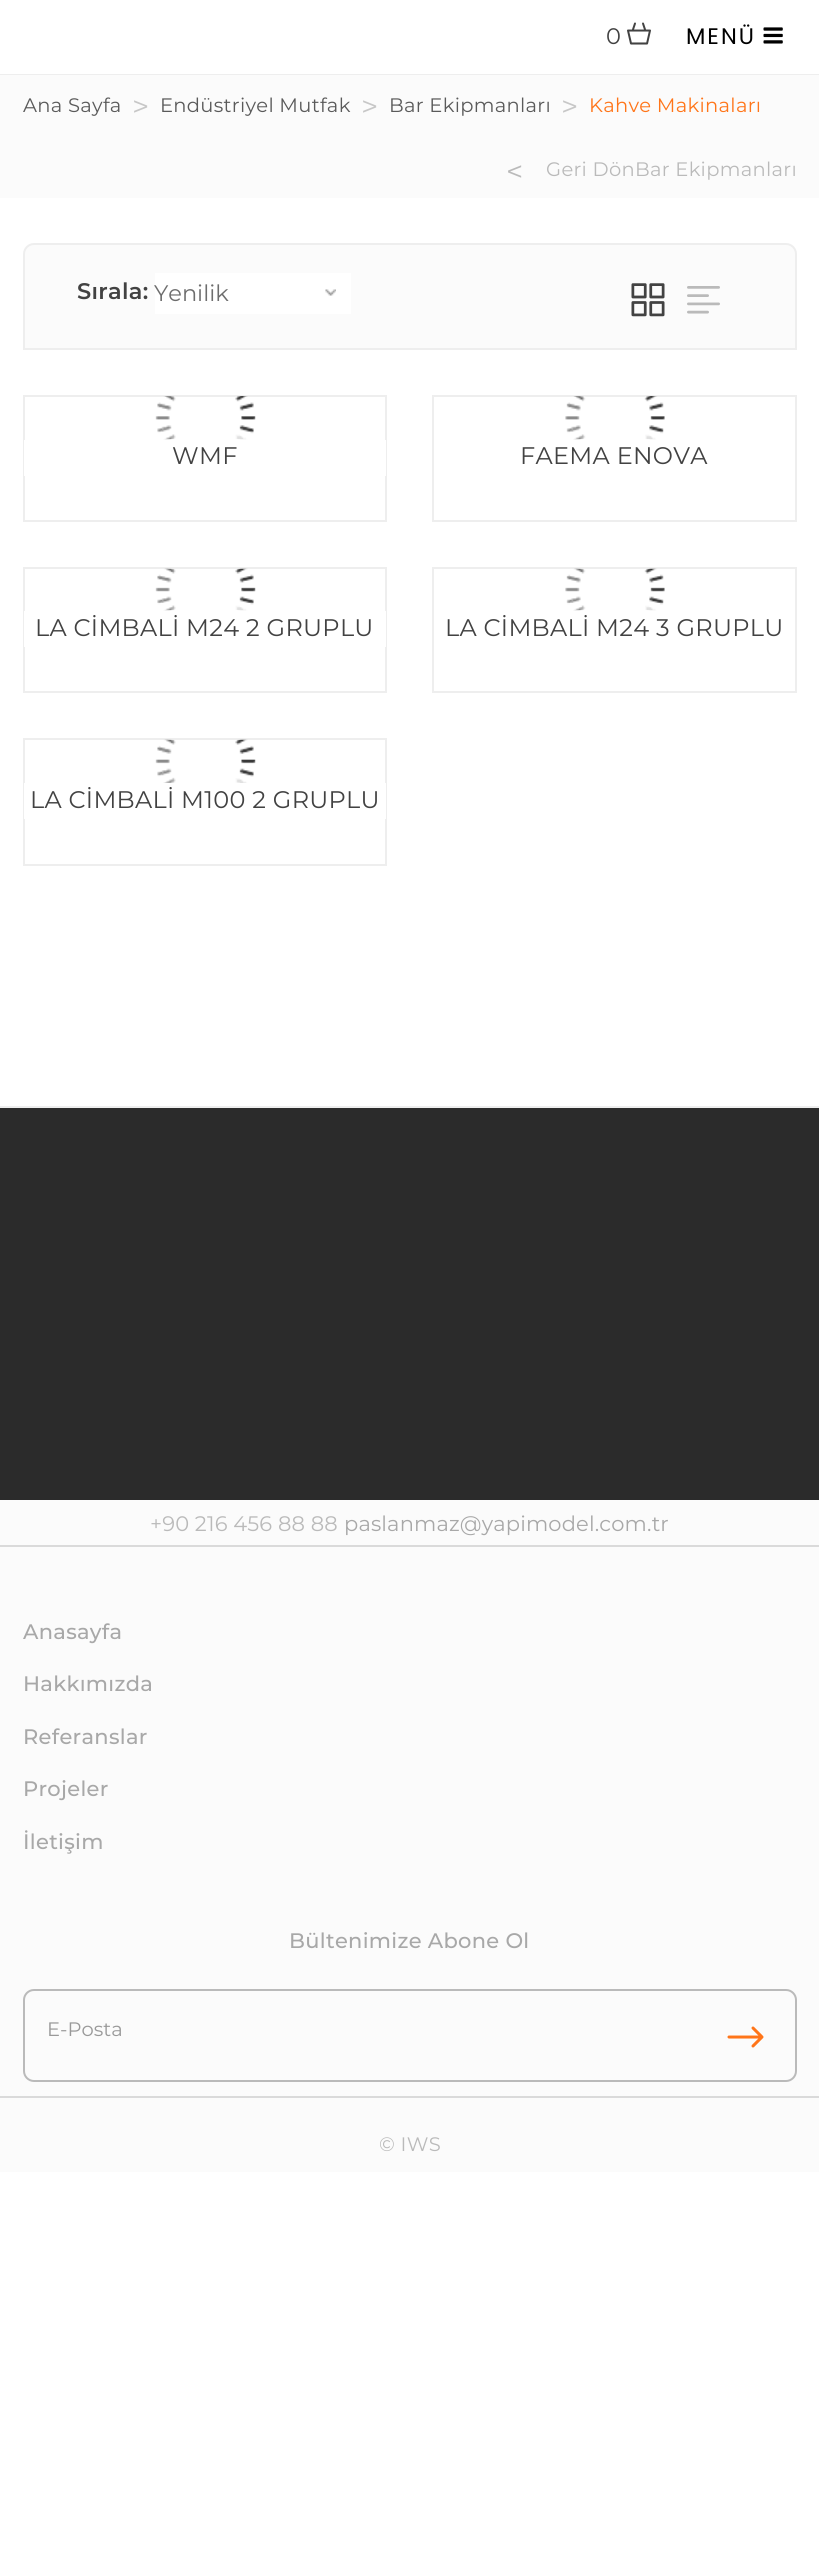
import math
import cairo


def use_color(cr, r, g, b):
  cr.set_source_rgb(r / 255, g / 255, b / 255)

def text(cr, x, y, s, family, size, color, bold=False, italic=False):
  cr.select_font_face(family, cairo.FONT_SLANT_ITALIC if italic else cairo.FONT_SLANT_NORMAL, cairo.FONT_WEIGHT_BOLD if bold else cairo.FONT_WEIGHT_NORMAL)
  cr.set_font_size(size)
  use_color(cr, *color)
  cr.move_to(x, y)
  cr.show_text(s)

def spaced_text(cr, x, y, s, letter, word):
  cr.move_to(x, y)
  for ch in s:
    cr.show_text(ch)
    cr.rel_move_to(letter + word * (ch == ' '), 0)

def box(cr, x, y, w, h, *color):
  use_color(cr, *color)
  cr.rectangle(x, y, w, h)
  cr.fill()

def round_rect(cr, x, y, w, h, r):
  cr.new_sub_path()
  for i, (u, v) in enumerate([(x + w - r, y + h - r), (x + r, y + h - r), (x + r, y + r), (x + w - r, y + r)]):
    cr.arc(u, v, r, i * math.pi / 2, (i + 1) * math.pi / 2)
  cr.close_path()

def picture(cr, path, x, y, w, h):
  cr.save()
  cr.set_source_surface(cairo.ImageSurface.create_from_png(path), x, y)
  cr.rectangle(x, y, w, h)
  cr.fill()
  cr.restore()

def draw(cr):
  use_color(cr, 255, 255, 255)
  cr.paint()
  box(cr, 0, 74, 819, 1, 238, 238, 238)
  picture(cr, "img_01.png", 627, 22, 24, 23)
  picture(cr, "img_02.png", 763, 27, 20, 17)
  box(cr, 0, 75, 819, 123, 251, 251, 251)
  cr.new_path()
  cr.move_to(34, 244)
  cr.line_to(786, 244)
  cr.curve_to(791.5, 244, 796, 248.5, 796, 254)
  cr.line_to(796, 349)
  cr.line_to(24, 349)
  cr.line_to(24, 254)
  cr.curve_to(24, 248.5, 28.5, 244, 34, 244)
  cr.close_path()
  cr.fill_preserve()
  use_color(cr, 238, 238, 238)
  cr.stroke()
  box(cr, 155, 273, 196, 41, 255, 255, 255)
  picture(cr, "img_03.png", 325, 289, 11, 7)
  picture(cr, "img_04.png", 631, 283, 34, 34)
  picture(cr, "img_05.png", 687, 286, 33, 28)
  cr.rectangle(24, 396, 362, 125)
  use_color(cr, 238, 238, 238)
  cr.stroke()
  picture(cr, "img_06.png", 155, 396, 101, 44)
  box(cr, 24, 440, 362, 36, 255, 255, 255)
  cr.rectangle(433, 396, 363, 125)
  use_color(cr, 238, 238, 238)
  cr.stroke()
  picture(cr, "img_07.png", 565, 396, 100, 44)
  cr.rectangle(24, 568, 362, 124)
  cr.stroke()
  picture(cr, "img_08.png", 155, 568, 101, 43)
  box(cr, 24, 611, 362, 36, 255, 255, 255)
  cr.rectangle(433, 568, 363, 124)
  use_color(cr, 238, 238, 238)
  cr.stroke()
  picture(cr, "img_09.png", 565, 568, 100, 43)
  cr.rectangle(24, 739, 362, 126)
  cr.stroke()
  picture(cr, "img_10.png", 155, 739, 101, 44)
  box(cr, 24, 783, 362, 36, 255, 255, 255)
  box(cr, 0, 1500, 819, 672, 251, 251, 251)
  box(cr, 0, 1108, 819, 392, 43, 43, 43)
  box(cr, 0, 1106, 819, 2, 238, 238, 238)
  box(cr, 0, 1545, 819, 2, 218, 218, 218)
  box(cr, 0, 2096, 819, 2, 218, 218, 218)
  round_rect(cr, 24, 1990, 772, 91, 10)
  use_color(cr, 186, 186, 186)
  cr.stroke()
  picture(cr, "img_11.png", 727, 2026, 37, 22)
  cr.select_font_face("Montserrat")
  cr.set_font_size(22.5)
  use_color(cr, 66, 66, 66)
  spaced_text(cr, 606, 44, "0", 0.3, 0)
  cr.select_font_face("Poppins")
  use_color(cr, 0, 0, 0)
  spaced_text(cr, 686, 44, "MENÜ", 2, 0)
  cr.select_font_face("Montserrat")
  cr.set_font_size(19.5)
  use_color(cr, 90, 90, 90)
  spaced_text(cr, 23, 112, "Ana Sayfa", 0.3, 0)
  cr.set_font_size(30)
  use_color(cr, 199, 199, 199)
  spaced_text(cr, 132, 117, ">", 0.3, 0)
  cr.set_font_size(19.5)
  use_color(cr, 90, 90, 90)
  spaced_text(cr, 160, 112, "Endüstriyel Mutfak", 0.3, 0)
  cr.set_font_size(30)
  use_color(cr, 199, 199, 199)
  spaced_text(cr, 361, 117, ">", 0.3, 0)
  cr.set_font_size(19.5)
  use_color(cr, 90, 90, 90)
  spaced_text(cr, 389, 112, "Bar Ekipmanları", 0.3, 0)
  cr.set_font_size(30)
  use_color(cr, 199, 199, 199)
  spaced_text(cr, 561, 117, ">", 0.3, 0)
  cr.set_font_size(19.5)
  use_color(cr, 255, 117, 25)
  spaced_text(cr, 589, 112, "Kahve Makinaları", 0.3, 0)
  cr.set_font_size(30)
  use_color(cr, 186, 186, 186)
  spaced_text(cr, 506, 182, "<", 0.3, 0)
  cr.set_font_size(19.5)
  spaced_text(cr, 546, 176, "Geri DönBar Ekipmanları", 0.3, 0)
  cr.select_font_face("Montserrat SemiBold")
  cr.set_font_size(22.5)
  use_color(cr, 66, 66, 66)
  spaced_text(cr, 77, 299, "Sırala:", 0.3, 0)
  text(cr, 154, 301, "Yenilik", "Montserrat", 22.5, (109, 109, 109))
  cr.set_font_size(24)
  use_color(cr, 66, 66, 66)
  spaced_text(cr, 172, 464, "WMF", 0.3, 0)
  spaced_text(cr, 520, 464, "FAEMA ENOVA", 0.3, 0)
  spaced_text(cr, 35, 636, "LA CİMBALİ M24 2 GRUPLU", 0.3, 0)
  spaced_text(cr, 445, 636, "LA CİMBALİ M24 3 GRUPLU", 0.3, 0)
  spaced_text(cr, 30, 808, "LA CİMBALİ M100 2 GRUPLU", 0.3, 0)
  cr.set_font_size(21)
  use_color(cr, 186, 186, 186)
  spaced_text(cr, 150, 1531, "+90 216 456 88 88", 0.15, 0)
  use_color(cr, 168, 168, 168)
  spaced_text(cr, 344, 1531, "paslanmaz@yapimodel.com.tr", 0.15, 0)
  cr.select_font_face("Montserrat Medium")
  spaced_text(cr, 23, 1639, "Anasayfa", 0.3, 0)
  spaced_text(cr, 23, 1691, "Hakkımızda", 0.3, 0)
  spaced_text(cr, 23, 1744, "Referanslar", 0.3, 0)
  spaced_text(cr, 23, 1796, "Projeler", 0.3, 0)
  spaced_text(cr, 23, 1849, "İletişim", 0.3, 0)
  spaced_text(cr, 289, 1948, "Bültenimize Abone Ol", 0.3, 0)
  text(cr, 47, 2036, "E-Posta", "Montserrat", 19.5, (153, 153, 153))
  use_color(cr, 186, 186, 186)
  spaced_text(cr, 379, 2151, "© IWS", 0.3, 0)


surface = cairo.ImageSurface(cairo.FORMAT_RGB24, 819, 2554)
cr = cairo.Context(surface)
options = cairo.FontOptions()
options.set_hint_metrics(cairo.HINT_METRICS_OFF)
options.set_hint_style(cairo.HINT_STYLE_NONE)
cr.set_font_options(options)
cr.set_miter_limit(4)
draw(cr)
surface.write_to_png("out.png")
